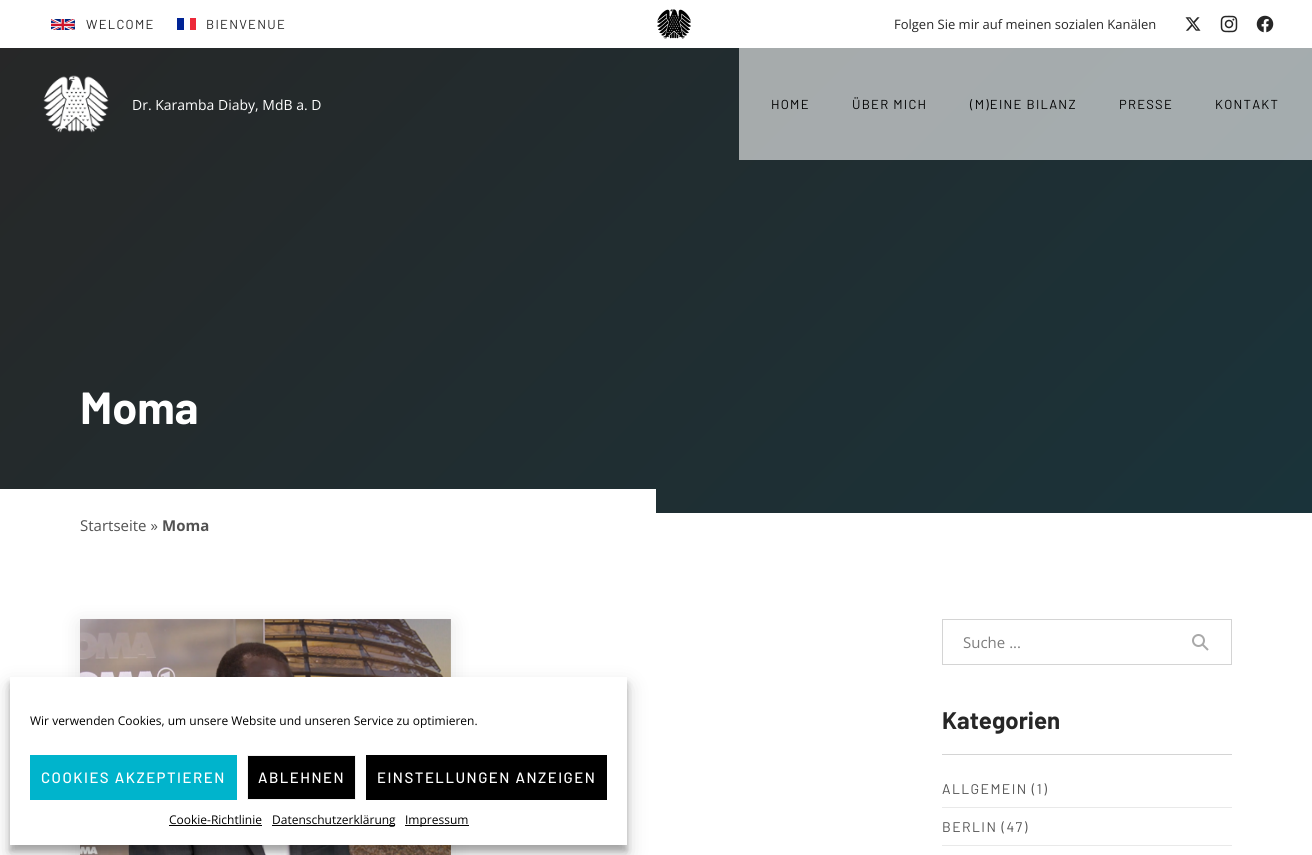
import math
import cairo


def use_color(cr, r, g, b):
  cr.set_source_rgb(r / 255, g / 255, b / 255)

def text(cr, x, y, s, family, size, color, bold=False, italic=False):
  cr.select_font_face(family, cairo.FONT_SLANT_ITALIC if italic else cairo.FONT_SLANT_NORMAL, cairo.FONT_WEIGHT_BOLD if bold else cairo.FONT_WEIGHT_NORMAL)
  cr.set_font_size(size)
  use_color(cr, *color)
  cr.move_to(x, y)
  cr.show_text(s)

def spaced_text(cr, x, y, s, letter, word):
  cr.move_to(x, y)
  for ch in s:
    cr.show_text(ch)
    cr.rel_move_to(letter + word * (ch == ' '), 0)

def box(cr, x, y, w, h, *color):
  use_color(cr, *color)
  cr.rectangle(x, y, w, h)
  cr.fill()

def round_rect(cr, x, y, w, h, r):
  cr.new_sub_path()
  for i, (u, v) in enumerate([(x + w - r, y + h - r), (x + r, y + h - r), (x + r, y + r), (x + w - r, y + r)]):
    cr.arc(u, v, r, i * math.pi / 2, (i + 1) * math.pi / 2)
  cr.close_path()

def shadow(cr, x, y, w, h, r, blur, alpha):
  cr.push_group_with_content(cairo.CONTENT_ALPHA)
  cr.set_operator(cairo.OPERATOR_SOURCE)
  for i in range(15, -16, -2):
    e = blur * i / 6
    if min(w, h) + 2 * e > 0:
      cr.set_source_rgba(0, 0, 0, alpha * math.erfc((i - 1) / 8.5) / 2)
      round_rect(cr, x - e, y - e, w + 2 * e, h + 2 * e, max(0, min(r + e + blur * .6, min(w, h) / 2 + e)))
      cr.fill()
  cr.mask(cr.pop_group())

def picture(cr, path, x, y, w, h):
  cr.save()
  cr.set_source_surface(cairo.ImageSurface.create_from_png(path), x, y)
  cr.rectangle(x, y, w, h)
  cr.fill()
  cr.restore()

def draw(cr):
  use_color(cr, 255, 255, 255)
  cr.paint()
  picture(cr, "img_01.png", 51, 19, 24, 11)
  box(cr, 190, 18, 6, 12, 237, 41, 57)
  box(cr, 177, 18, 7, 12, 0, 35, 149)
  picture(cr, "img_02.png", 657, 9, 34, 30)
  picture(cr, "img_03.png", 1185, 17, 16, 14)
  picture(cr, "img_04.png", 1220, 15, 18, 18)
  picture(cr, "img_05.png", 1256, 15, 18, 18)
  gradient = cairo.LinearGradient(200, -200, 1112, 713)
  gradient.add_color_stop_rgba(0, 0.153, 0.153, 0.153, 1)
  gradient.add_color_stop_rgba(1, 0.102, 0.2, 0.227, 1)
  cr.set_source(gradient)
  cr.rectangle(0, 48, 1312, 465)
  cr.fill()
  picture(cr, "img_06.png", 43, 75, 66, 58)
  gradient = cairo.LinearGradient(200, -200, 1112, 713)
  gradient.add_color_stop_rgba(0, 0.663, 0.663, 0.663, 1)
  gradient.add_color_stop_rgba(1, 0.639, 0.678, 0.69, 1)
  cr.set_source(gradient)
  cr.rectangle(739, 48, 573, 112)
  cr.fill()
  box(cr, 0, 489, 656, 24, 255, 255, 255)
  use_color(cr, 0, 0, 10)
  shadow(cr, 80, 623, 371, 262, 0, 10, 0.1)
  picture(cr, "img_07.png", 80, 619, 371, 236)
  cr.rectangle(942.5, 619.5, 289, 45)
  use_color(cr, 212, 212, 212)
  cr.set_line_width(1)
  cr.stroke()
  picture(cr, "img_08.png", 1192, 634, 17, 17)
  box(cr, 942, 754, 290, 1, 212, 212, 212)
  box(cr, 942, 807, 290, 1, 233, 233, 233)
  box(cr, 942, 845, 290, 1, 233, 233, 233)
  use_color(cr, 0, 0, 0)
  shadow(cr, 10, 683, 617, 168, 0, 3, 0.23)
  shadow(cr, 10, 687, 617, 168, 0, 10, 0.19)
  box(cr, 10, 677, 617, 168, 255, 255, 255)
  box(cr, 30, 755, 207, 45, 0, 180, 204)
  use_color(cr, 0, 0, 0)
  cr.rectangle(247.5, 755.5, 108, 44)
  cr.fill_preserve()
  use_color(cr, 241, 241, 241)
  cr.stroke()
  box(cr, 366, 755, 241, 45, 0, 0, 0)
  box(cr, 169, 825, 93, 1, 0, 0, 0)
  box(cr, 272, 825, 123, 1, 0, 0, 0)
  box(cr, 405, 825, 64, 1, 0, 0, 0)
  cr.select_font_face("Barlow")
  cr.set_font_size(13)
  use_color(cr, 39, 39, 39)
  spaced_text(cr, 86, 29, "WELCOME", 1.25, 0)
  spaced_text(cr, 206, 29, "BIENVENUE", 1.25, 0)
  text(cr, 894, 29, "Folgen Sie mir auf meinen sozialen Kanälen", "Open Sans", 13, (39, 39, 39))
  text(cr, 132, 110, "Dr. Karamba Diaby, MdB a. D", "Open Sans", 14, (255, 255, 255))
  cr.select_font_face("Barlow")
  cr.set_font_size(13)
  use_color(cr, 0, 0, 0)
  spaced_text(cr, 771, 109, "HOME", 1.25, 0)
  spaced_text(cr, 852, 109, "ÜBER MICH", 1.25, 0)
  spaced_text(cr, 970, 109, "(M)EINE BILANZ", 1.25, 0)
  spaced_text(cr, 1119, 109, "PRESSE", 1.25, 0)
  spaced_text(cr, 1215, 109, "KONTAKT", 1.25, 0)
  text(cr, 80, 424, "Moma", "Barlow", 45, (255, 255, 255), bold=True)
  text(cr, 80, 531, "Startseite »", "Open Sans", 15, (82, 82, 82))
  text(cr, 162, 531, "Moma", "Open Sans", 15, (82, 82, 82), bold=True)
  text(cr, 963, 648, "Suche ...", "Open Sans", 15, (125, 125, 125))
  text(cr, 942, 729, "Kategorien", "Barlow", 24, (39, 39, 39), bold=True)
  cr.select_font_face("Barlow")
  cr.set_font_size(14)
  use_color(cr, 82, 82, 82)
  spaced_text(cr, 942, 794, "ALLGEMEIN (1)", 1.4, 0)
  spaced_text(cr, 942, 832, "BERLIN (47)", 1.4, 0)
  text(cr, 30, 725, "Wir verwenden Cookies, um unsere Website und unseren Service zu optimieren.", "Open Sans", 12, (0, 0, 0))
  cr.select_font_face("Barlow Medium")
  cr.set_font_size(15)
  use_color(cr, 255, 255, 255)
  spaced_text(cr, 41, 783, "COOKIES AKZEPTIEREN", 1.5, 0)
  spaced_text(cr, 258, 783, "ABLEHNEN", 1.5, 0)
  spaced_text(cr, 377, 783, "EINSTELLUNGEN ANZEIGEN", 1.5, 0)
  text(cr, 169, 824, "Cookie-Richtlinie", "Open Sans", 12, (0, 0, 0))
  text(cr, 272, 824, "Datenschutzerklärung", "Open Sans", 12, (0, 0, 0))
  text(cr, 405, 824, "Impressum", "Open Sans", 12, (0, 0, 0))


surface = cairo.ImageSurface(cairo.FORMAT_RGB24, 1312, 855)
cr = cairo.Context(surface)
options = cairo.FontOptions()
options.set_hint_metrics(cairo.HINT_METRICS_OFF)
options.set_hint_style(cairo.HINT_STYLE_NONE)
cr.set_font_options(options)
cr.set_miter_limit(4)
draw(cr)
surface.write_to_png("out.png")
